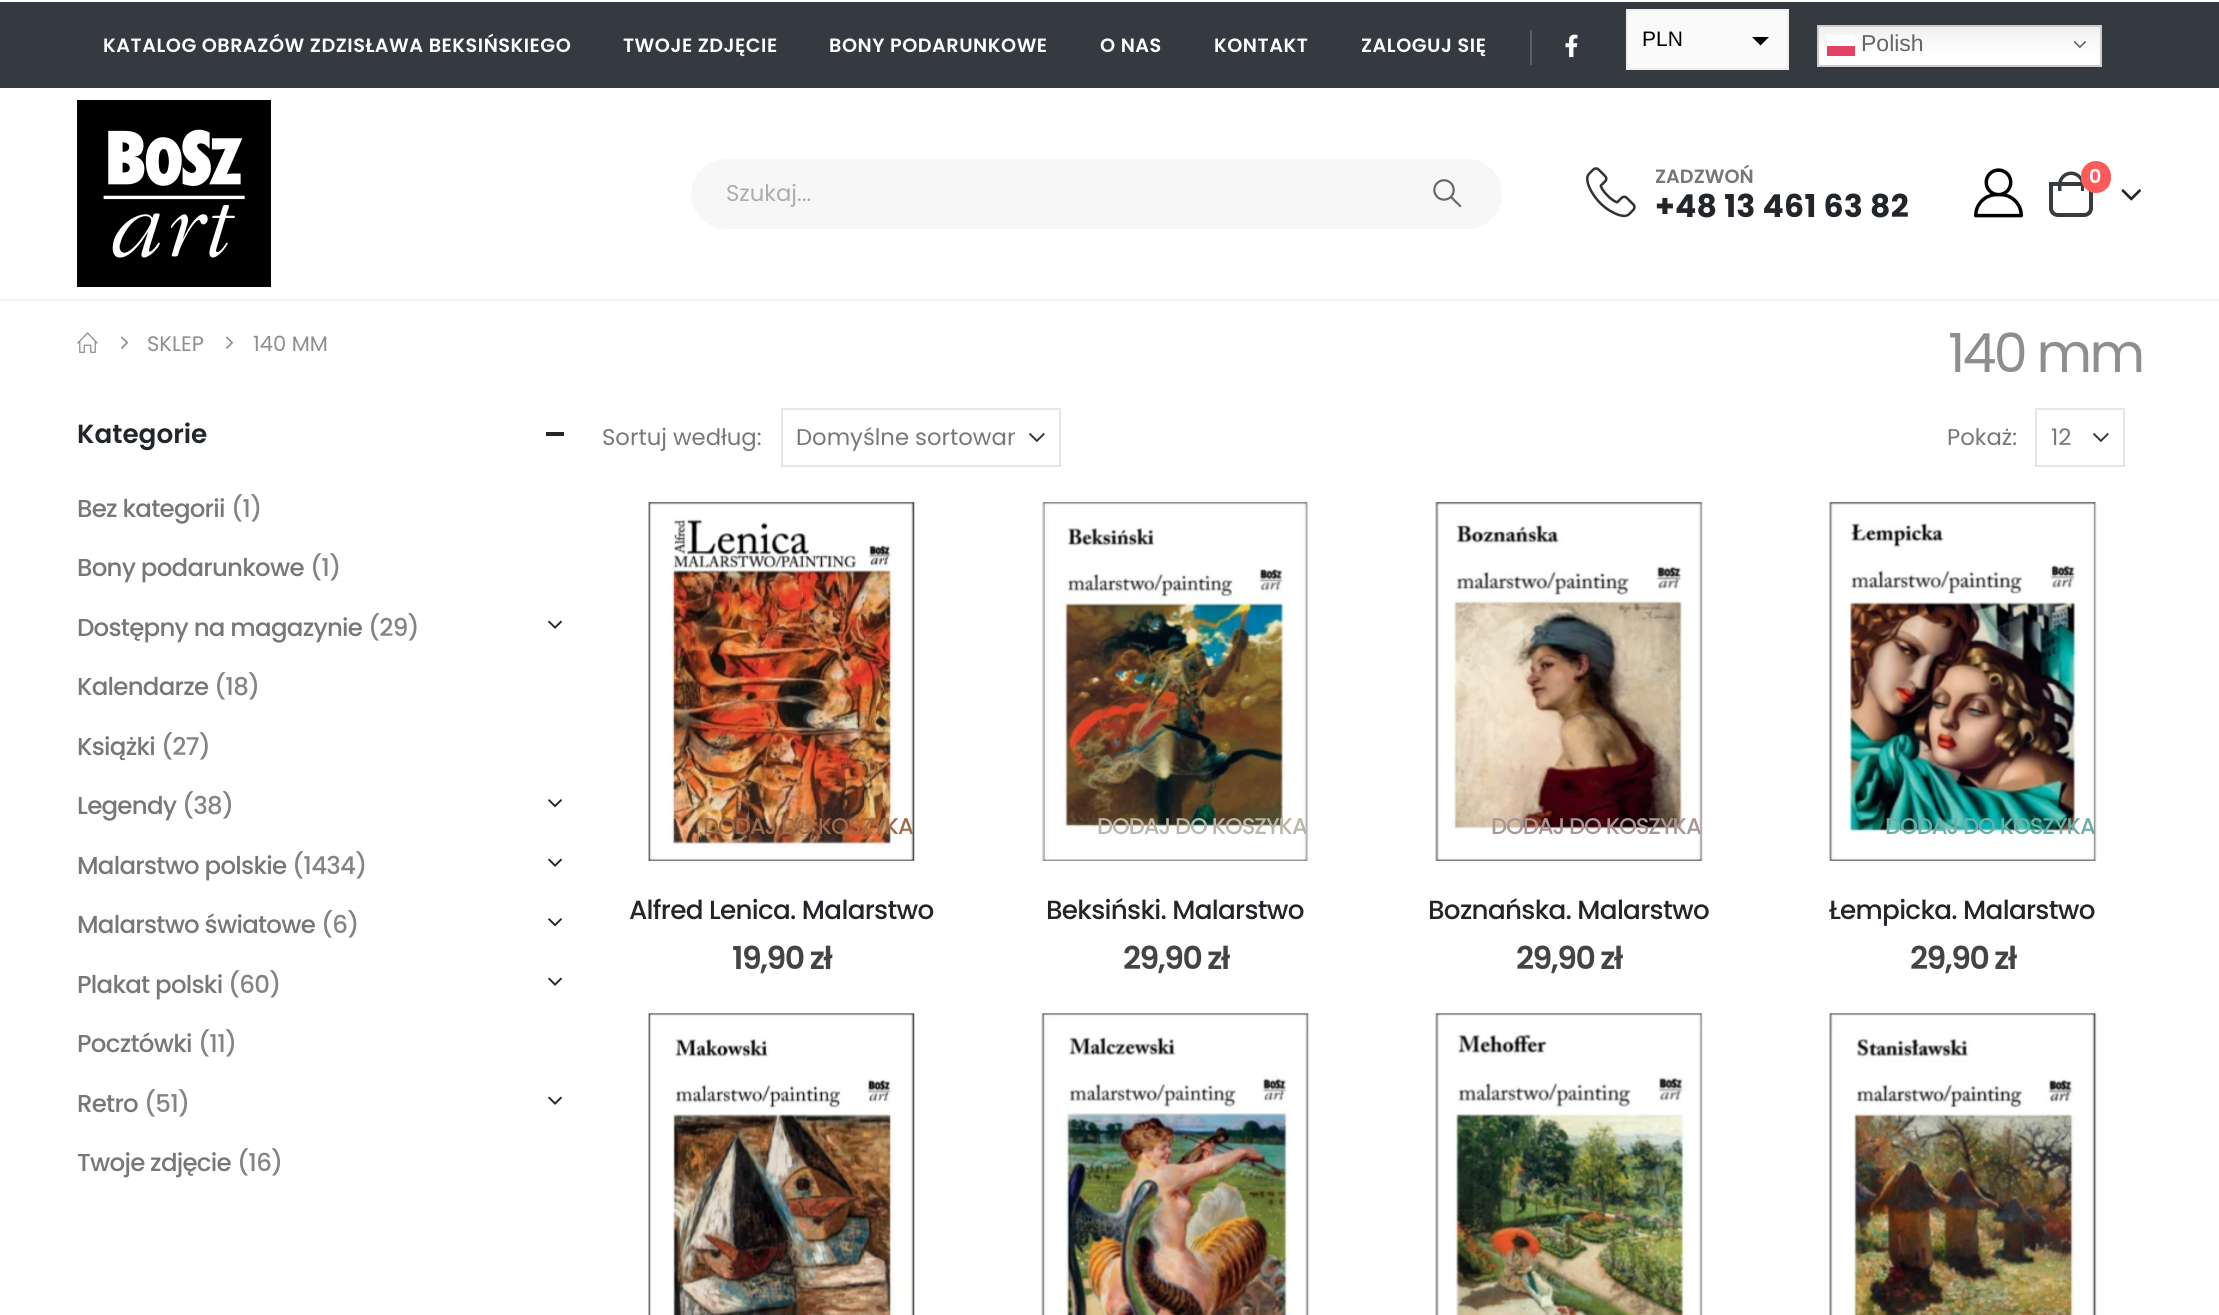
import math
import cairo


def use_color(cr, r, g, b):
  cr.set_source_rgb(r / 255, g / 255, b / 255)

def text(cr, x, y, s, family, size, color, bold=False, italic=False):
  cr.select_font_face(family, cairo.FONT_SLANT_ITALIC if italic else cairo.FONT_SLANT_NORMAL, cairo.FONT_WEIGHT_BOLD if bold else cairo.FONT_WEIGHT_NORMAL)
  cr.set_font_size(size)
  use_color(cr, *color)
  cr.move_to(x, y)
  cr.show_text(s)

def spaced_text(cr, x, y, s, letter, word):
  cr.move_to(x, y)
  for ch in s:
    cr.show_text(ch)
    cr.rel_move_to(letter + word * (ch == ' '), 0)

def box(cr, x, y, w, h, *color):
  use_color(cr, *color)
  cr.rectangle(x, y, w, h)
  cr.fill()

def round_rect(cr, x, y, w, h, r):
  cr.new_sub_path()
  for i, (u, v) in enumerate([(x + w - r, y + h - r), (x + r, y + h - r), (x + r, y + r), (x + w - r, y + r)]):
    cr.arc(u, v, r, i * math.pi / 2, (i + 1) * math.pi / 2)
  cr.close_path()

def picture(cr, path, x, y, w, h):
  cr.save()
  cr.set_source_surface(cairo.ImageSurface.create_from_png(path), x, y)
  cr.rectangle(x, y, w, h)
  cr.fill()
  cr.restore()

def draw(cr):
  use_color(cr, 255, 255, 255)
  cr.paint()
  box(cr, 0, 2, 2219, 86, 52, 58, 64)
  box(cr, 1530, 30, 2, 35, 89, 93, 98)
  picture(cr, "img_01.png", 1565, 34, 13, 24)
  box(cr, 1626, 9, 163, 61, 238, 238, 238)
  box(cr, 1628, 11, 159, 57, 250, 250, 250)
  use_color(cr, 0, 0, 0)
  cr.new_path()
  cr.move_to(1752, 37)
  cr.line_to(1769, 37)
  cr.line_to(1760.5, 45.5)
  cr.close_path()
  cr.fill()
  gradient = cairo.LinearGradient(1959, 24, 1959, 67)
  gradient.add_color_stop_rgba(0, 0.937, 0.937, 0.937, 1)
  gradient.add_color_stop_rgba(0.7, 1, 1, 1, 1)
  cr.set_source(gradient)
  cr.rectangle(1819, 27, 281, 38)
  cr.fill()
  gradient = cairo.LinearGradient(1959, 24, 1959, 67)
  gradient.add_color_stop_rgba(0, 0.988, 0.988, 0.988, 1)
  gradient.add_color_stop_rgba(0.7, 1, 1, 1, 1)
  cr.set_source(gradient)
  cr.rectangle(1827, 35, 28, 11)
  cr.fill()
  cr.rectangle(1818, 26, 283, 40)
  use_color(cr, 204, 204, 204)
  cr.stroke()
  picture(cr, "img_02.png", 2074, 41, 12, 8)
  box(cr, 1827, 46, 28, 10, 227, 67, 99)
  picture(cr, "img_03.png", 77, 100, 194, 187)
  picture(cr, "img_04.png", 1586, 167, 50, 51)
  picture(cr, "img_05.png", 1974, 168, 49, 50)
  cr.new_path()
  cr.move_to(2051, 184)
  cr.line_to(2091, 184)
  cr.line_to(2091, 208)
  cr.curve_to(2091, 212, 2088, 215, 2084, 215)
  cr.line_to(2058, 215)
  cr.curve_to(2054, 215, 2051, 212, 2051, 208)
  cr.close_path()
  use_color(cr, 56, 59, 62)
  cr.set_line_width(4)
  cr.stroke()
  cr.set_fill_rule(cairo.FILL_RULE_EVEN_ODD)
  cr.new_path()
  cr.move_to(2071, 171.5)
  cr.curve_to(2078.5, 171.5, 2084, 177.5, 2084, 184.5)
  cr.line_to(2084, 191)
  cr.line_to(2058, 191)
  cr.line_to(2058, 184.5)
  cr.curve_to(2058, 177.5, 2064, 171.5, 2071, 171.5)
  cr.close_path()
  cr.move_to(2071, 175)
  cr.curve_to(2076.5, 175, 2081, 179.5, 2081, 184.5)
  cr.line_to(2081, 191)
  cr.line_to(2061.5, 191)
  cr.line_to(2061.5, 184.5)
  cr.curve_to(2061.5, 179.5, 2066, 175, 2071, 175)
  cr.close_path()
  cr.fill()
  use_color(cr, 255, 91, 91)
  round_rect(cr, 2081, 161, 30, 32, 15)
  cr.fill()
  picture(cr, "img_06.png", 2121, 189, 20, 12)
  use_color(cr, 247, 247, 247)
  round_rect(cr, 691, 159, 811, 70, 35)
  cr.fill()
  picture(cr, "img_07.png", 1433, 179, 29, 29)
  box(cr, 0, 299, 2219, 2, 244, 244, 244)
  picture(cr, "img_08.png", 77, 332, 21, 21)
  picture(cr, "img_09.png", 120, 336, 9, 13)
  picture(cr, "img_09.png", 225, 336, 9, 13)
  box(cr, 546, 432, 18, 4, 34, 37, 41)
  picture(cr, "img_10.png", 548, 620, 14, 9)
  picture(cr, "img_11.png", 548, 799, 14, 9)
  picture(cr, "img_10.png", 548, 858, 14, 9)
  picture(cr, "img_11.png", 548, 918, 14, 9)
  picture(cr, "img_10.png", 548, 977, 14, 9)
  picture(cr, "img_10.png", 548, 1096, 14, 9)
  picture(cr, "img_12.png", 1029, 432, 16, 11)
  cr.rectangle(782, 409, 278, 57)
  use_color(cr, 231, 231, 231)
  cr.set_line_width(2)
  cr.stroke()
  picture(cr, "img_12.png", 2093, 432, 16, 11)
  cr.rectangle(2036, 409, 88, 57)
  cr.stroke()
  picture(cr, "img_13.png", 648, 502, 267, 359)
  picture(cr, "img_14.png", 1042, 502, 267, 359)
  picture(cr, "img_15.png", 1435, 502, 268, 359)
  picture(cr, "img_16.png", 1829, 502, 268, 359)
  picture(cr, "img_17.png", 648, 1013, 267, 302)
  picture(cr, "img_18.png", 1041, 1013, 268, 302)
  picture(cr, "img_19.png", 1435, 1013, 268, 302)
  picture(cr, "img_20.png", 1829, 1013, 268, 302)
  cr.select_font_face("Poppins SemiBold")
  cr.set_font_size(19.25)
  use_color(cr, 255, 255, 255)
  spaced_text(cr, 103, 52, "KATALOG OBRAZÓW ZDZISŁAWA BEKSIŃSKIEGO", 0.5, 0)
  spaced_text(cr, 623, 52, "TWOJE ZDJĘCIE", 0.5, 0)
  spaced_text(cr, 829, 52, "BONY PODARUNKOWE", 0.5, 0)
  spaced_text(cr, 1100, 52, "O NAS", 0.5, 0)
  spaced_text(cr, 1214, 52, "KONTAKT", 0.5, 0)
  spaced_text(cr, 1361, 52, "ZALOGUJ SIĘ", 0.5, 0)
  text(cr, 1642, 46, "PLN", "Liberation Sans", 21, (0, 0, 0))
  text(cr, 1861, 51, "Polish", "Liberation Sans", 23, (102, 102, 102))
  text(cr, 1655, 183, "ZADZWOŃ", "Poppins SemiBold", 19.25, (119, 119, 119))
  cr.select_font_face("Poppins", cairo.FONT_SLANT_NORMAL, cairo.FONT_WEIGHT_BOLD)
  cr.set_font_size(31.5)
  use_color(cr, 34, 37, 41)
  spaced_text(cr, 1655, 217, "+48 13 461 63 82", 0.25, 0)
  text(cr, 2089, 183, "0", "Poppins SemiBold", 19, (255, 255, 255))
  text(cr, 726, 201, "Szukaj...", "Poppins", 22.75, (173, 173, 173))
  text(cr, 147, 351, "SKLEP", "Poppins", 21, (142, 142, 142))
  text(cr, 253, 351, "140 MM", "Poppins", 21, (142, 142, 142))
  cr.set_font_size(54)
  spaced_text(cr, 1948, 372, "140 mm", -2.75, 0)
  text(cr, 77, 443, "Kategorie", "Poppins SemiBold", 26.25, (34, 37, 41))
  cr.select_font_face("Poppins Medium")
  cr.set_font_size(24.5)
  use_color(cr, 119, 119, 119)
  spaced_text(cr, 77, 517, "Bez kategorii", -0.75, 0)
  use_color(cr, 132, 132, 132)
  spaced_text(cr, 231, 517, "(1)", -0.75, 0)
  use_color(cr, 119, 119, 119)
  spaced_text(cr, 77, 576, "Bony podarunkowe", -0.75, 0)
  use_color(cr, 132, 132, 132)
  spaced_text(cr, 310, 576, "(1)", -0.75, 0)
  use_color(cr, 119, 119, 119)
  spaced_text(cr, 77, 636, "Dostępny na magazynie", -0.75, 0)
  use_color(cr, 132, 132, 132)
  spaced_text(cr, 368, 636, "(29)", -0.75, 0)
  use_color(cr, 119, 119, 119)
  spaced_text(cr, 77, 695, "Kalendarze", -0.75, 0)
  use_color(cr, 132, 132, 132)
  spaced_text(cr, 214, 695, "(18)", -0.75, 0)
  use_color(cr, 119, 119, 119)
  spaced_text(cr, 77, 755, "Książki", -0.75, 0)
  use_color(cr, 132, 132, 132)
  spaced_text(cr, 161, 755, "(27)", -0.75, 0)
  use_color(cr, 119, 119, 119)
  spaced_text(cr, 77, 814, "Legendy", -0.75, 0)
  use_color(cr, 132, 132, 132)
  spaced_text(cr, 182, 814, "(38)", -0.75, 0)
  use_color(cr, 119, 119, 119)
  spaced_text(cr, 77, 874, "Malarstwo polskie", -0.75, 0)
  use_color(cr, 132, 132, 132)
  spaced_text(cr, 292, 874, "(1434)", -0.75, 0)
  use_color(cr, 119, 119, 119)
  spaced_text(cr, 77, 933, "Malarstwo światowe", -0.75, 0)
  use_color(cr, 132, 132, 132)
  spaced_text(cr, 321, 933, "(6)", -0.75, 0)
  use_color(cr, 119, 119, 119)
  spaced_text(cr, 77, 993, "Plakat polski", -0.75, 0)
  use_color(cr, 132, 132, 132)
  spaced_text(cr, 228, 993, "(60)", -0.75, 0)
  use_color(cr, 119, 119, 119)
  spaced_text(cr, 77, 1052, "Pocztówki", -0.75, 0)
  use_color(cr, 132, 132, 132)
  spaced_text(cr, 198, 1052, "(11)", -0.75, 0)
  use_color(cr, 119, 119, 119)
  spaced_text(cr, 77, 1112, "Retro", -0.75, 0)
  use_color(cr, 132, 132, 132)
  spaced_text(cr, 144, 1112, "(51)", -0.75, 0)
  use_color(cr, 119, 119, 119)
  spaced_text(cr, 77, 1171, "Twoje zdjęcie", -0.75, 0)
  use_color(cr, 132, 132, 132)
  spaced_text(cr, 237, 1171, "(16)", -0.75, 0)
  text(cr, 602, 445, "Sortuj według:", "Poppins", 22.75, (119, 119, 119))
  cr.save()
  cr.set_fill_rule(cairo.FILL_RULE_WINDING)
  cr.rectangle(796, 422, 219, 33)
  cr.clip()
  text(cr, 796, 445, "Domyślne sortowan", "Poppins", 22.75, (119, 119, 119))
  cr.restore()
  text(cr, 1947, 445, "Pokaż:", "Poppins", 22.75, (119, 119, 119))
  text(cr, 2051, 445, "12", "Poppins", 22.75, (119, 119, 119))
  cr.select_font_face("Poppins Medium")
  use_color(cr, 157, 106, 75)
  spaced_text(cr, 703, 834, "DODAJ DO KOSZYKA", -1.1, 0)
  cr.set_font_size(26.25)
  use_color(cr, 34, 37, 41)
  spaced_text(cr, 629, 919, "Alfred Lenica. Malarstwo", -0.7, 0)
  cr.select_font_face("Poppins SemiBold")
  cr.set_font_size(31.5)
  use_color(cr, 68, 68, 68)
  spaced_text(cr, 732, 969, "19,90 zł", -1.5, 0)
  cr.select_font_face("Poppins Medium")
  cr.set_font_size(22.75)
  use_color(cr, 184, 181, 170)
  spaced_text(cr, 1097, 834, "DODAJ DO KOSZYKA", -1.1, 0)
  cr.set_font_size(26.25)
  use_color(cr, 34, 37, 41)
  spaced_text(cr, 1046, 919, "Beksiński. Malarstwo", -0.7, 0)
  cr.select_font_face("Poppins SemiBold")
  cr.set_font_size(31.5)
  use_color(cr, 68, 68, 68)
  spaced_text(cr, 1123, 969, "29,90 zł", -1.5, 0)
  cr.select_font_face("Poppins Medium")
  cr.set_font_size(22.75)
  use_color(cr, 169, 150, 148)
  spaced_text(cr, 1491, 834, "DODAJ DO KOSZYKA", -1.1, 0)
  cr.set_font_size(26.25)
  use_color(cr, 34, 37, 41)
  spaced_text(cr, 1428, 919, "Boznańska. Malarstwo", -0.7, 0)
  cr.select_font_face("Poppins SemiBold")
  cr.set_font_size(31.5)
  use_color(cr, 68, 68, 68)
  spaced_text(cr, 1516, 969, "29,90 zł", -1.5, 0)
  cr.select_font_face("Poppins Medium")
  cr.set_font_size(22.75)
  use_color(cr, 109, 173, 168)
  spaced_text(cr, 1885, 834, "DODAJ DO KOSZYKA", -1.1, 0)
  cr.set_font_size(26.25)
  use_color(cr, 34, 37, 41)
  spaced_text(cr, 1829, 919, "Łempicka. Malarstwo", -0.7, 0)
  cr.select_font_face("Poppins SemiBold")
  cr.set_font_size(31.5)
  use_color(cr, 68, 68, 68)
  spaced_text(cr, 1910, 969, "29,90 zł", -1.5, 0)


surface = cairo.ImageSurface(cairo.FORMAT_RGB24, 2219, 1315)
cr = cairo.Context(surface)
options = cairo.FontOptions()
options.set_hint_metrics(cairo.HINT_METRICS_OFF)
options.set_hint_style(cairo.HINT_STYLE_NONE)
cr.set_font_options(options)
cr.set_miter_limit(4)
draw(cr)
surface.write_to_png("out.png")
